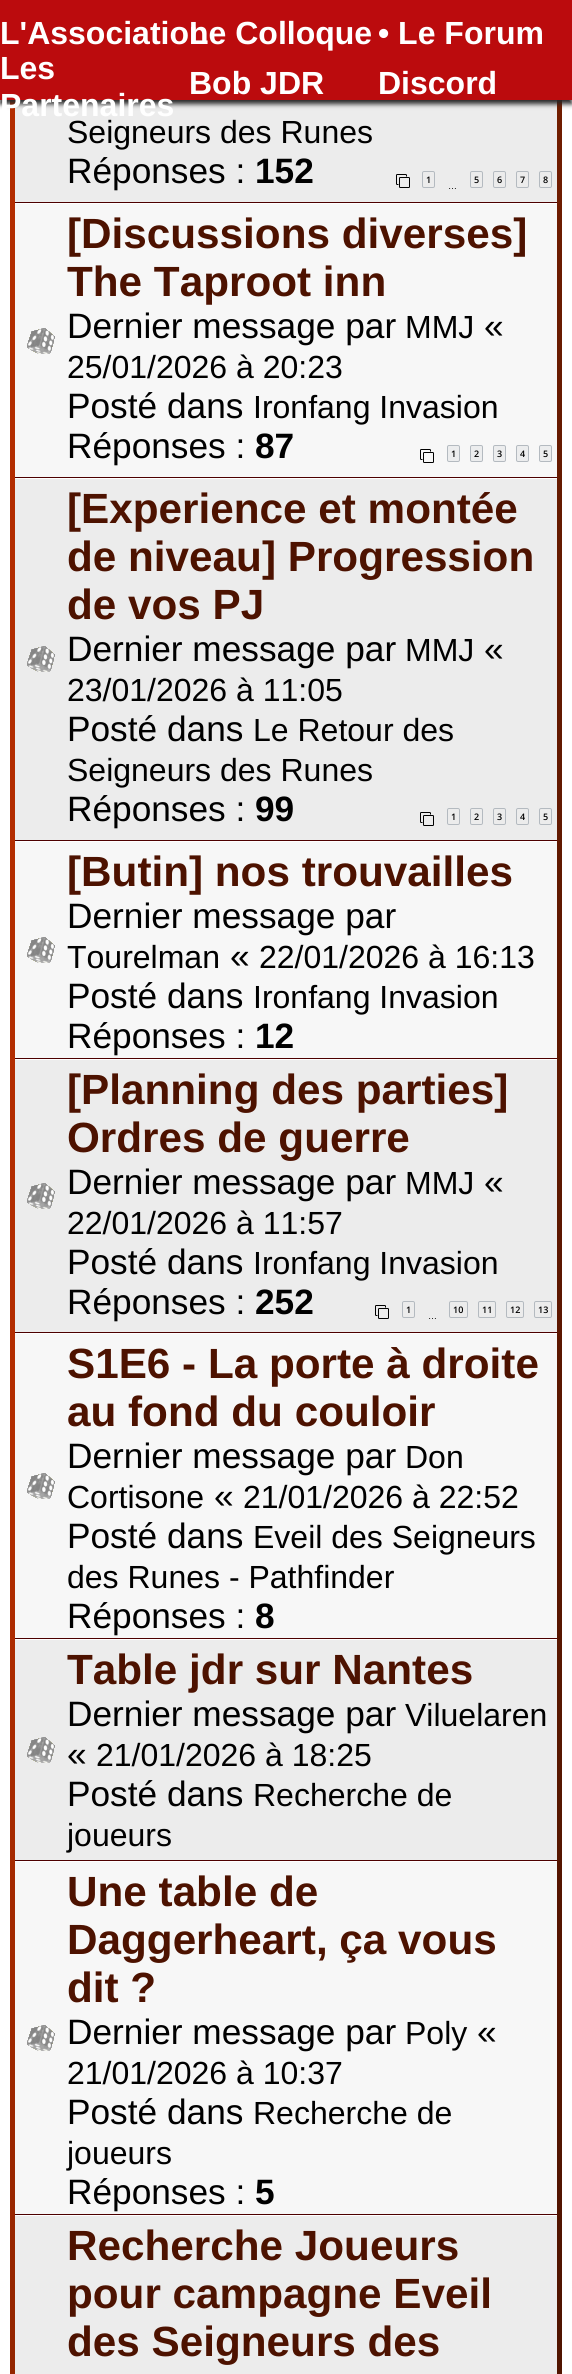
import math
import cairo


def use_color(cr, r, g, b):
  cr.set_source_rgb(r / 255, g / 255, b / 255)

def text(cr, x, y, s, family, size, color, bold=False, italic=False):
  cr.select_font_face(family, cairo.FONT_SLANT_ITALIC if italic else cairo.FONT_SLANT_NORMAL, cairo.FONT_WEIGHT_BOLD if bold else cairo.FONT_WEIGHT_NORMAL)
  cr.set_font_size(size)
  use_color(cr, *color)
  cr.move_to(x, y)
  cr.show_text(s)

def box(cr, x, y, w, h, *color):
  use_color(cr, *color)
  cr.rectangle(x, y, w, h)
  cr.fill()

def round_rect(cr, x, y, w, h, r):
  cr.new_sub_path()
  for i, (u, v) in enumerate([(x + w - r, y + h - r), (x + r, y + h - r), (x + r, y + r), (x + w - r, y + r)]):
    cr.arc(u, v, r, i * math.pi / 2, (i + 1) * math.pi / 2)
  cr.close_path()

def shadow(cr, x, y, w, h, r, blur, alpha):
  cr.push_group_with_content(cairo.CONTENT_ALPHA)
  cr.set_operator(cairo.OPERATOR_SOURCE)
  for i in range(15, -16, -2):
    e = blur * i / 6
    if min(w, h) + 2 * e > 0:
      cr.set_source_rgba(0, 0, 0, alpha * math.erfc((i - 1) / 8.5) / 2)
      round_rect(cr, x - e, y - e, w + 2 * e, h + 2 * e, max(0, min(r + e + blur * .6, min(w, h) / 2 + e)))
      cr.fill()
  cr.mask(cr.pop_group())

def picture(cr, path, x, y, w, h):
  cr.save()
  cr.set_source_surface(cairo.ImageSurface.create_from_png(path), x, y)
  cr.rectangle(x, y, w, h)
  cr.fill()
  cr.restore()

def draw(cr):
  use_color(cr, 255, 255, 255)
  cr.paint()
  gradient = cairo.LinearGradient(-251, 851, 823, 1031)
  gradient.add_color_stop_rgba(0, 0.702, 0.176, 0, 1)
  gradient.add_color_stop_rgba(0.33, 0.702, 0.176, 0, 1)
  gradient.add_color_stop_rgba(0.67, 0.4, 0.102, 0, 1)
  gradient.add_color_stop_rgba(1, 0.302, 0.075, 0, 1)
  cr.set_source(gradient)
  cr.rectangle(10, 100, 552, 2274)
  cr.fill()
  box(cr, 15, 100, 542, 102, 236, 236, 236)
  use_color(cr, 38, 38, 38)
  shadow(cr, 0, 4, 572, 100, 0, 2.5, 1)
  box(cr, 0, 0, 572, 100, 187, 11, 13)
  box(cr, 15, 202, 542, 1, 77, 0, 0)
  picture(cr, "img_01.png", 396, 174, 14, 14)
  round_rect(cr, 422.5, 171.5, 12, 16, 1.5)
  use_color(cr, 180, 186, 192)
  cr.set_line_width(1)
  cr.stroke()
  round_rect(cr, 470.5, 171.5, 12, 16, 1.5)
  cr.stroke()
  round_rect(cr, 493.5, 171.5, 12, 16, 1.5)
  cr.stroke()
  round_rect(cr, 516.5, 171.5, 12, 16, 1.5)
  cr.stroke()
  round_rect(cr, 539.5, 171.5, 12, 16, 1.5)
  cr.stroke()
  box(cr, 15, 204, 542, 273, 247, 247, 247)
  box(cr, 15, 203, 542, 1, 255, 255, 255)
  box(cr, 15, 477, 542, 1, 77, 0, 0)
  picture(cr, "img_02.png", 27, 328, 28, 26)
  picture(cr, "img_03.png", 420, 449, 14, 14)
  use_color(cr, 236, 237, 238)
  round_rect(cr, 447.5, 445.5, 12, 16, 1.5)
  cr.fill_preserve()
  use_color(cr, 180, 186, 192)
  cr.stroke()
  use_color(cr, 236, 237, 238)
  round_rect(cr, 470.5, 445.5, 12, 16, 1.5)
  cr.fill_preserve()
  use_color(cr, 180, 186, 192)
  cr.stroke()
  use_color(cr, 236, 237, 238)
  round_rect(cr, 493.5, 445.5, 12, 16, 1.5)
  cr.fill_preserve()
  use_color(cr, 180, 186, 192)
  cr.stroke()
  use_color(cr, 236, 237, 238)
  round_rect(cr, 516.5, 445.5, 12, 16, 1.5)
  cr.fill_preserve()
  use_color(cr, 180, 186, 192)
  cr.stroke()
  use_color(cr, 236, 237, 238)
  round_rect(cr, 539.5, 445.5, 12, 16, 1.5)
  cr.fill_preserve()
  use_color(cr, 180, 186, 192)
  cr.stroke()
  box(cr, 15, 479, 542, 361, 236, 236, 236)
  box(cr, 15, 478, 542, 1, 255, 255, 255)
  box(cr, 15, 840, 542, 1, 77, 0, 0)
  picture(cr, "img_04.png", 27, 646, 28, 26)
  picture(cr, "img_01.png", 420, 812, 14, 14)
  round_rect(cr, 447.5, 808.5, 12, 16, 1.5)
  use_color(cr, 180, 186, 192)
  cr.stroke()
  round_rect(cr, 470.5, 808.5, 12, 16, 1.5)
  cr.stroke()
  round_rect(cr, 493.5, 808.5, 12, 16, 1.5)
  cr.stroke()
  round_rect(cr, 516.5, 808.5, 12, 16, 1.5)
  cr.stroke()
  round_rect(cr, 539.5, 808.5, 12, 16, 1.5)
  cr.stroke()
  box(cr, 15, 842, 542, 216, 247, 247, 247)
  box(cr, 15, 841, 542, 1, 255, 255, 255)
  box(cr, 15, 1058, 542, 1, 77, 0, 0)
  picture(cr, "img_02.png", 27, 937, 28, 26)
  box(cr, 15, 1060, 542, 272, 236, 236, 236)
  box(cr, 15, 1059, 542, 1, 255, 255, 255)
  box(cr, 15, 1332, 542, 1, 77, 0, 0)
  picture(cr, "img_04.png", 27, 1183, 28, 26)
  picture(cr, "img_01.png", 375, 1305, 14, 14)
  round_rect(cr, 402.5, 1301.5, 12, 16, 1.5)
  use_color(cr, 180, 186, 192)
  cr.stroke()
  round_rect(cr, 449.5, 1301.5, 18, 16, 1.5)
  cr.stroke()
  round_rect(cr, 478.5, 1301.5, 17, 16, 1.5)
  cr.stroke()
  round_rect(cr, 506.5, 1301.5, 17, 16, 1.5)
  cr.stroke()
  round_rect(cr, 534.5, 1301.5, 17, 16, 1.5)
  cr.stroke()
  box(cr, 15, 1334, 542, 304, 247, 247, 247)
  box(cr, 15, 1333, 542, 1, 255, 255, 255)
  box(cr, 15, 1638, 542, 1, 77, 0, 0)
  picture(cr, "img_02.png", 27, 1473, 28, 26)
  box(cr, 15, 1640, 542, 220, 236, 236, 236)
  box(cr, 15, 1639, 542, 1, 255, 255, 255)
  box(cr, 15, 1860, 542, 1, 77, 0, 0)
  picture(cr, "img_04.png", 27, 1737, 28, 26)
  box(cr, 15, 1862, 542, 352, 247, 247, 247)
  box(cr, 15, 1861, 542, 1, 255, 255, 255)
  box(cr, 15, 2214, 542, 1, 77, 0, 0)
  picture(cr, "img_02.png", 27, 2025, 28, 26)
  box(cr, 15, 2216, 542, 158, 236, 236, 236)
  box(cr, 15, 2215, 542, 1, 255, 255, 255)
  text(cr, 0, 44, "L'Association", "Liberation Sans", 32, (255, 255, 255), bold=True)
  text(cr, 189, 44, "Le Colloque", "Liberation Sans", 32, (255, 255, 255), bold=True)
  text(cr, 378, 44, "• Le Forum", "Liberation Sans", 32, (255, 255, 255), bold=True)
  text(cr, 0, 79, "Les", "Liberation Sans", 32, (255, 255, 255), bold=True)
  text(cr, 0, 116, "Partenaires", "Liberation Sans", 32, (255, 255, 255), bold=True)
  text(cr, 189, 94, "Bob JDR", "Liberation Sans", 32, (255, 255, 255), bold=True)
  text(cr, 378, 94, "Discord", "Liberation Sans", 32, (255, 255, 255), bold=True)
  text(cr, 67, 143, "Seigneurs des Runes", "Liberation Sans", 32, (0, 0, 0))
  text(cr, 67, 183, "Réponses :", "Liberation Sans", 35.25, (0, 0, 0))
  text(cr, 255, 183, "152", "Liberation Sans", 35.25, (0, 0, 0), bold=True)
  text(cr, 426, 183, "1", "Open Sans SemiBold", 9, (0, 0, 0))
  text(cr, 474, 183, "5", "Open Sans SemiBold", 9, (0, 0, 0))
  text(cr, 497, 183, "6", "Open Sans SemiBold", 9, (0, 0, 0))
  text(cr, 520, 183, "7", "Open Sans SemiBold", 9, (0, 0, 0))
  text(cr, 543, 183, "8", "Open Sans SemiBold", 9, (0, 0, 0))
  text(cr, 448, 189, "…", "Liberation Sans", 9, (0, 0, 0))
  text(cr, 67, 248, "[Discussions diverses]", "Liberation Sans", 42.25, (77, 18, 0), bold=True)
  text(cr, 67, 296, "The Taproot inn", "Liberation Sans", 42.25, (77, 18, 0), bold=True)
  text(cr, 67, 338, "Dernier message par", "Liberation Sans", 35.25, (0, 0, 0))
  text(cr, 405, 338, "MMJ", "Liberation Sans", 32, (0, 0, 0))
  text(cr, 484, 338, "«", "Liberation Sans", 35.25, (0, 0, 0))
  text(cr, 67, 378, "25/01/2026 à 20:23", "Liberation Sans", 32, (0, 0, 0))
  text(cr, 67, 418, "Posté dans", "Liberation Sans", 35.25, (0, 0, 0))
  text(cr, 253, 418, "Ironfang Invasion", "Liberation Sans", 32, (0, 0, 0))
  text(cr, 67, 458, "Réponses :", "Liberation Sans", 35.25, (0, 0, 0))
  text(cr, 255, 458, "87", "Liberation Sans", 35.25, (0, 0, 0), bold=True)
  text(cr, 451, 457, "1", "Open Sans SemiBold", 9, (0, 0, 0))
  text(cr, 474, 457, "2", "Open Sans SemiBold", 9, (0, 0, 0))
  text(cr, 497, 457, "3", "Open Sans SemiBold", 9, (0, 0, 0))
  text(cr, 520, 457, "4", "Open Sans SemiBold", 9, (0, 0, 0))
  text(cr, 543, 457, "5", "Open Sans SemiBold", 9, (0, 0, 0))
  text(cr, 67, 523, "[Experience et montée", "Liberation Sans", 42.25, (77, 18, 0), bold=True)
  text(cr, 67, 571, "de niveau] Progression", "Liberation Sans", 42.25, (77, 18, 0), bold=True)
  text(cr, 67, 619, "de vos PJ", "Liberation Sans", 42.25, (77, 18, 0), bold=True)
  text(cr, 67, 661, "Dernier message par", "Liberation Sans", 35.25, (0, 0, 0))
  text(cr, 405, 661, "MMJ", "Liberation Sans", 32, (0, 0, 0))
  text(cr, 484, 661, "«", "Liberation Sans", 35.25, (0, 0, 0))
  text(cr, 67, 701, "23/01/2026 à 11:05", "Liberation Sans", 32, (0, 0, 0))
  text(cr, 67, 741, "Posté dans", "Liberation Sans", 35.25, (0, 0, 0))
  text(cr, 253, 741, "Le Retour des", "Liberation Sans", 32, (0, 0, 0))
  text(cr, 67, 781, "Seigneurs des Runes", "Liberation Sans", 32, (0, 0, 0))
  text(cr, 67, 821, "Réponses :", "Liberation Sans", 35.25, (0, 0, 0))
  text(cr, 255, 821, "99", "Liberation Sans", 35.25, (0, 0, 0), bold=True)
  text(cr, 451, 820, "1", "Open Sans SemiBold", 9, (0, 0, 0))
  text(cr, 474, 820, "2", "Open Sans SemiBold", 9, (0, 0, 0))
  text(cr, 497, 820, "3", "Open Sans SemiBold", 9, (0, 0, 0))
  text(cr, 520, 820, "4", "Open Sans SemiBold", 9, (0, 0, 0))
  text(cr, 543, 820, "5", "Open Sans SemiBold", 9, (0, 0, 0))
  text(cr, 67, 886, "[Butin] nos trouvailles", "Liberation Sans", 42.25, (77, 18, 0), bold=True)
  text(cr, 67, 928, "Dernier message par", "Liberation Sans", 35.25, (0, 0, 0))
  text(cr, 67, 968, "Tourelman", "Liberation Sans", 32, (0, 0, 0))
  text(cr, 230, 968, "«", "Liberation Sans", 35.25, (0, 0, 0))
  text(cr, 259, 968, "22/01/2026 à 16:13", "Liberation Sans", 32, (0, 0, 0))
  text(cr, 67, 1008, "Posté dans", "Liberation Sans", 35.25, (0, 0, 0))
  text(cr, 253, 1008, "Ironfang Invasion", "Liberation Sans", 32, (0, 0, 0))
  text(cr, 67, 1048, "Réponses :", "Liberation Sans", 35.25, (0, 0, 0))
  text(cr, 255, 1048, "12", "Liberation Sans", 35.25, (0, 0, 0), bold=True)
  text(cr, 67, 1104, "[Planning des parties]", "Liberation Sans", 42.25, (77, 18, 0), bold=True)
  text(cr, 67, 1152, "Ordres de guerre", "Liberation Sans", 42.25, (77, 18, 0), bold=True)
  text(cr, 67, 1194, "Dernier message par", "Liberation Sans", 35.25, (0, 0, 0))
  text(cr, 405, 1194, "MMJ", "Liberation Sans", 32, (0, 0, 0))
  text(cr, 484, 1194, "«", "Liberation Sans", 35.25, (0, 0, 0))
  text(cr, 67, 1234, "22/01/2026 à 11:57", "Liberation Sans", 32, (0, 0, 0))
  text(cr, 67, 1274, "Posté dans", "Liberation Sans", 35.25, (0, 0, 0))
  text(cr, 253, 1274, "Ironfang Invasion", "Liberation Sans", 32, (0, 0, 0))
  text(cr, 67, 1314, "Réponses :", "Liberation Sans", 35.25, (0, 0, 0))
  text(cr, 255, 1314, "252", "Liberation Sans", 35.25, (0, 0, 0), bold=True)
  text(cr, 406, 1313, "1", "Open Sans SemiBold", 9, (0, 0, 0))
  text(cr, 453, 1313, "10", "Open Sans SemiBold", 9, (0, 0, 0))
  text(cr, 482, 1313, "11", "Open Sans SemiBold", 9, (0, 0, 0))
  text(cr, 510, 1313, "12", "Open Sans SemiBold", 9, (0, 0, 0))
  text(cr, 538, 1313, "13", "Open Sans SemiBold", 9, (0, 0, 0))
  text(cr, 428, 1319, "…", "Liberation Sans", 9, (0, 0, 0))
  text(cr, 67, 1378, "S1E6 - La porte à droite", "Liberation Sans", 42.25, (77, 18, 0), bold=True)
  text(cr, 67, 1426, "au fond du couloir", "Liberation Sans", 42.25, (77, 18, 0), bold=True)
  text(cr, 67, 1468, "Dernier message par", "Liberation Sans", 35.25, (0, 0, 0))
  text(cr, 405, 1468, "Don", "Liberation Sans", 32, (0, 0, 0))
  text(cr, 67, 1508, "Cortisone", "Liberation Sans", 32, (0, 0, 0))
  text(cr, 214, 1508, "«", "Liberation Sans", 35.25, (0, 0, 0))
  text(cr, 243, 1508, "21/01/2026 à 22:52", "Liberation Sans", 32, (0, 0, 0))
  text(cr, 67, 1548, "Posté dans", "Liberation Sans", 35.25, (0, 0, 0))
  text(cr, 253, 1548, "Eveil des Seigneurs", "Liberation Sans", 32, (0, 0, 0))
  text(cr, 67, 1588, "des Runes - Pathfinder", "Liberation Sans", 32, (0, 0, 0))
  text(cr, 67, 1628, "Réponses :", "Liberation Sans", 35.25, (0, 0, 0))
  text(cr, 255, 1628, "8", "Liberation Sans", 35.25, (0, 0, 0), bold=True)
  text(cr, 67, 1684, "Table jdr sur Nantes", "Liberation Sans", 42.25, (77, 18, 0), bold=True)
  text(cr, 67, 1726, "Dernier message par", "Liberation Sans", 35.25, (0, 0, 0))
  text(cr, 405, 1726, "Viluelaren", "Liberation Sans", 32, (0, 0, 0))
  text(cr, 67, 1766, "«", "Liberation Sans", 35.25, (0, 0, 0))
  text(cr, 96, 1766, "21/01/2026 à 18:25", "Liberation Sans", 32, (0, 0, 0))
  text(cr, 67, 1806, "Posté dans", "Liberation Sans", 35.25, (0, 0, 0))
  text(cr, 253, 1806, "Recherche de", "Liberation Sans", 32, (0, 0, 0))
  text(cr, 67, 1846, "joueurs", "Liberation Sans", 32, (0, 0, 0))
  text(cr, 67, 1906, "Une table de", "Liberation Sans", 42.25, (77, 18, 0), bold=True)
  text(cr, 67, 1954, "Daggerheart, ça vous", "Liberation Sans", 42.25, (77, 18, 0), bold=True)
  text(cr, 67, 2002, "dit ?", "Liberation Sans", 42.25, (77, 18, 0), bold=True)
  text(cr, 67, 2044, "Dernier message par", "Liberation Sans", 35.25, (0, 0, 0))
  text(cr, 405, 2044, "Poly", "Liberation Sans", 32, (0, 0, 0))
  text(cr, 477, 2044, "«", "Liberation Sans", 35.25, (0, 0, 0))
  text(cr, 67, 2084, "21/01/2026 à 10:37", "Liberation Sans", 32, (0, 0, 0))
  text(cr, 67, 2124, "Posté dans", "Liberation Sans", 35.25, (0, 0, 0))
  text(cr, 253, 2124, "Recherche de", "Liberation Sans", 32, (0, 0, 0))
  text(cr, 67, 2164, "joueurs", "Liberation Sans", 32, (0, 0, 0))
  text(cr, 67, 2204, "Réponses :", "Liberation Sans", 35.25, (0, 0, 0))
  text(cr, 255, 2204, "5", "Liberation Sans", 35.25, (0, 0, 0), bold=True)
  text(cr, 67, 2260, "Recherche Joueurs", "Liberation Sans", 42.25, (77, 18, 0), bold=True)
  text(cr, 67, 2308, "pour campagne Eveil", "Liberation Sans", 42.25, (77, 18, 0), bold=True)
  text(cr, 67, 2356, "des Seigneurs des", "Liberation Sans", 42.25, (77, 18, 0), bold=True)


surface = cairo.ImageSurface(cairo.FORMAT_RGB24, 572, 2374)
cr = cairo.Context(surface)
options = cairo.FontOptions()
options.set_hint_metrics(cairo.HINT_METRICS_OFF)
options.set_hint_style(cairo.HINT_STYLE_NONE)
cr.set_font_options(options)
cr.set_miter_limit(4)
draw(cr)
surface.write_to_png("out.png")
